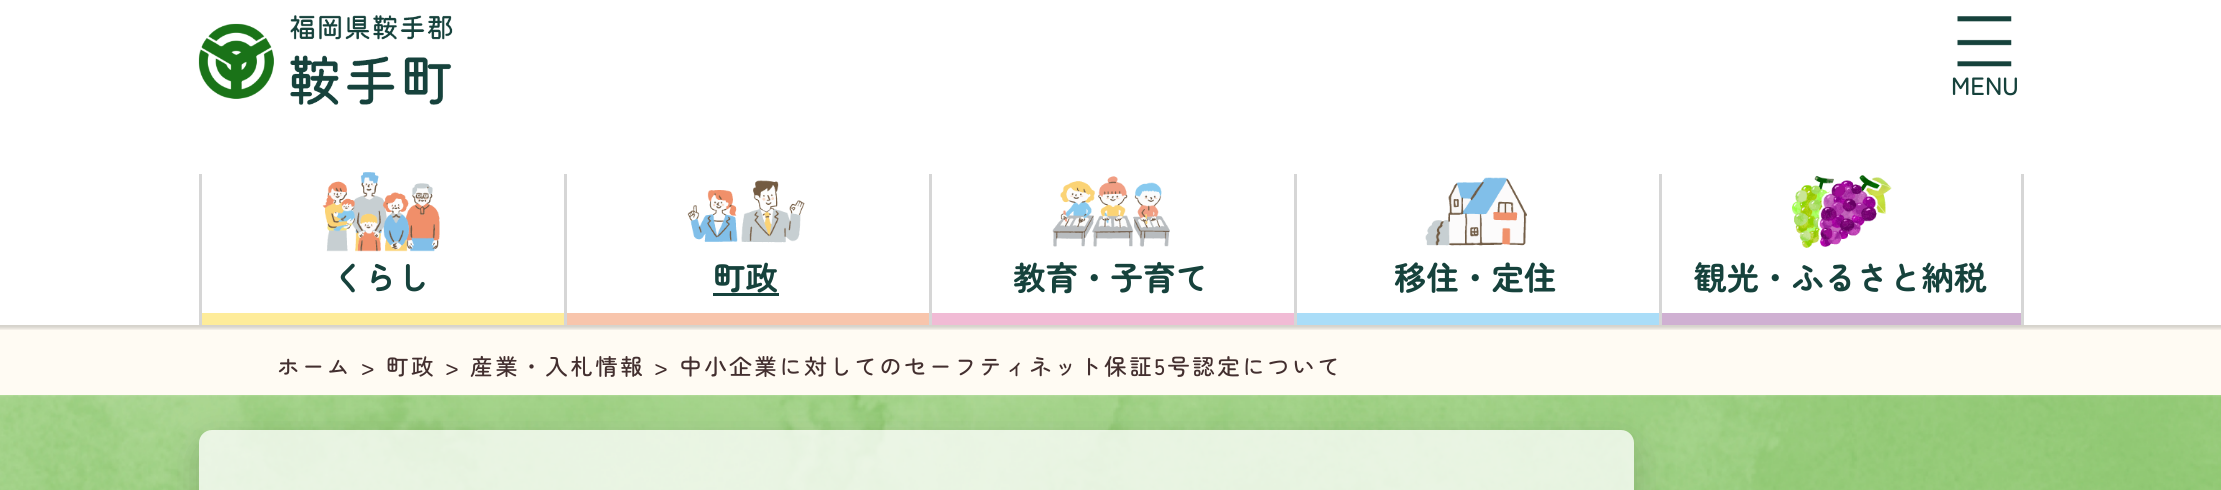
import math
import cairo


def use_color(cr, r, g, b):
  cr.set_source_rgb(r / 255, g / 255, b / 255)

def text(cr, x, y, s, family, size, color, bold=False, italic=False):
  cr.select_font_face(family, cairo.FONT_SLANT_ITALIC if italic else cairo.FONT_SLANT_NORMAL, cairo.FONT_WEIGHT_BOLD if bold else cairo.FONT_WEIGHT_NORMAL)
  cr.set_font_size(size)
  use_color(cr, *color)
  cr.move_to(x, y)
  cr.show_text(s)

def spaced_text(cr, x, y, s, letter, word):
  cr.move_to(x, y)
  for ch in s:
    cr.show_text(ch)
    cr.rel_move_to(letter + word * (ch == ' '), 0)

def box(cr, x, y, w, h, *color):
  use_color(cr, *color)
  cr.rectangle(x, y, w, h)
  cr.fill()

def round_rect(cr, x, y, w, h, r):
  cr.new_sub_path()
  for i, (u, v) in enumerate([(x + w - r, y + h - r), (x + r, y + h - r), (x + r, y + r), (x + w - r, y + r)]):
    cr.arc(u, v, r, i * math.pi / 2, (i + 1) * math.pi / 2)
  cr.close_path()

def shadow(cr, x, y, w, h, r, blur, alpha):
  cr.push_group_with_content(cairo.CONTENT_ALPHA)
  cr.set_operator(cairo.OPERATOR_SOURCE)
  for i in range(15, -16, -2):
    e = blur * i / 6
    if min(w, h) + 2 * e > 0:
      cr.set_source_rgba(0, 0, 0, alpha * math.erfc((i - 1) / 8.5) / 2)
      round_rect(cr, x - e, y - e, w + 2 * e, h + 2 * e, max(0, min(r + e + blur * .6, min(w, h) / 2 + e)))
      cr.fill()
  cr.mask(cr.pop_group())

def picture(cr, path, x, y, w, h):
  cr.save()
  cr.set_source_surface(cairo.ImageSurface.create_from_png(path), x, y)
  cr.rectangle(x, y, w, h)
  cr.fill()
  cr.restore()

def draw(cr):
  use_color(cr, 255, 255, 255)
  cr.paint()
  picture(cr, "img_01.png", 198, 15, 255, 90)
  picture(cr, "img_02.png", 1957, 16, 55, 51)
  box(cr, 199, 174, 3, 151, 214, 214, 214)
  picture(cr, "img_03.png", 322, 172, 118, 80)
  box(cr, 202, 313, 362, 12, 254, 236, 154)
  box(cr, 564, 174, 3, 151, 214, 214, 214)
  picture(cr, "img_04.png", 687, 180, 118, 63)
  box(cr, 567, 313, 362, 12, 248, 197, 172)
  box(cr, 713, 293, 66, 3, 22, 66, 60)
  box(cr, 929, 174, 3, 151, 214, 214, 214)
  picture(cr, "img_05.png", 1052, 176, 118, 71)
  box(cr, 932, 313, 362, 12, 241, 187, 213)
  box(cr, 1294, 174, 3, 151, 214, 214, 214)
  picture(cr, "img_06.png", 1425, 177, 102, 69)
  box(cr, 1297, 313, 362, 12, 170, 221, 248)
  box(cr, 1659, 174, 3, 151, 214, 214, 214)
  picture(cr, "img_07.png", 1792, 175, 100, 73)
  box(cr, 1662, 313, 359, 12, 207, 176, 210)
  box(cr, 2021, 174, 3, 151, 214, 214, 214)
  box(cr, 0, 325, 2221, 70, 255, 251, 243)
  picture(cr, "img_08.png", 0, 325, 2221, 5)
  picture(cr, "img_09.png", 0, 395, 2221, 95)
  cr.save()
  cr.set_fill_rule(cairo.FILL_RULE_EVEN_ODD)
  cr.new_path()
  cr.move_to(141, 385)
  cr.line_to(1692, 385)
  cr.line_to(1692, 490)
  cr.line_to(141, 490)
  cr.close_path()
  cr.move_to(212, 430)
  cr.line_to(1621, 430)
  cr.curve_to(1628, 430, 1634, 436, 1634, 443)
  cr.line_to(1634, 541)
  cr.curve_to(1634, 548, 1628, 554, 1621, 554)
  cr.line_to(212, 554)
  cr.curve_to(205, 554, 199, 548, 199, 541)
  cr.line_to(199, 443)
  cr.curve_to(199, 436, 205, 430, 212, 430)
  cr.close_path()
  cr.clip()
  use_color(cr, 0, 0, 0)
  shadow(cr, 199, 443, 1435, 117, 13, 19, 0.16)
  cr.restore()
  cr.set_source_rgba(1, 1, 1, 0.76)
  round_rect(cr, 199, 430, 1435, 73, 13)
  cr.fill()
  text(cr, 1951, 95, "MENU", "Zen Maru Gothic Medium", 25, (22, 66, 60))
  text(cr, 332, 290, "くらし", "Zen Maru Gothic", 32.5, (22, 66, 60), bold=True)
  text(cr, 713, 290, "町政", "Zen Maru Gothic", 32.5, (22, 66, 60), bold=True)
  text(cr, 1013, 290, "教育・子育て", "Zen Maru Gothic", 32.5, (22, 66, 60), bold=True)
  text(cr, 1394, 290, "移住・定住", "Zen Maru Gothic", 32.5, (22, 66, 60), bold=True)
  text(cr, 1694, 290, "観光・ふるさと納税", "Zen Maru Gothic", 32.5, (22, 66, 60), bold=True)
  cr.select_font_face("Zen Maru Gothic Medium")
  cr.set_font_size(22.5)
  use_color(cr, 67, 47, 47)
  spaced_text(cr, 277, 375, "ホーム > 町政 > 産業・入札情報 > 中小企業に対してのセーフティネット保証5号認定について", 2.5, 0)


surface = cairo.ImageSurface(cairo.FORMAT_RGB24, 2221, 490)
cr = cairo.Context(surface)
options = cairo.FontOptions()
options.set_hint_metrics(cairo.HINT_METRICS_OFF)
options.set_hint_style(cairo.HINT_STYLE_NONE)
cr.set_font_options(options)
cr.set_miter_limit(4)
draw(cr)
surface.write_to_png("out.png")
